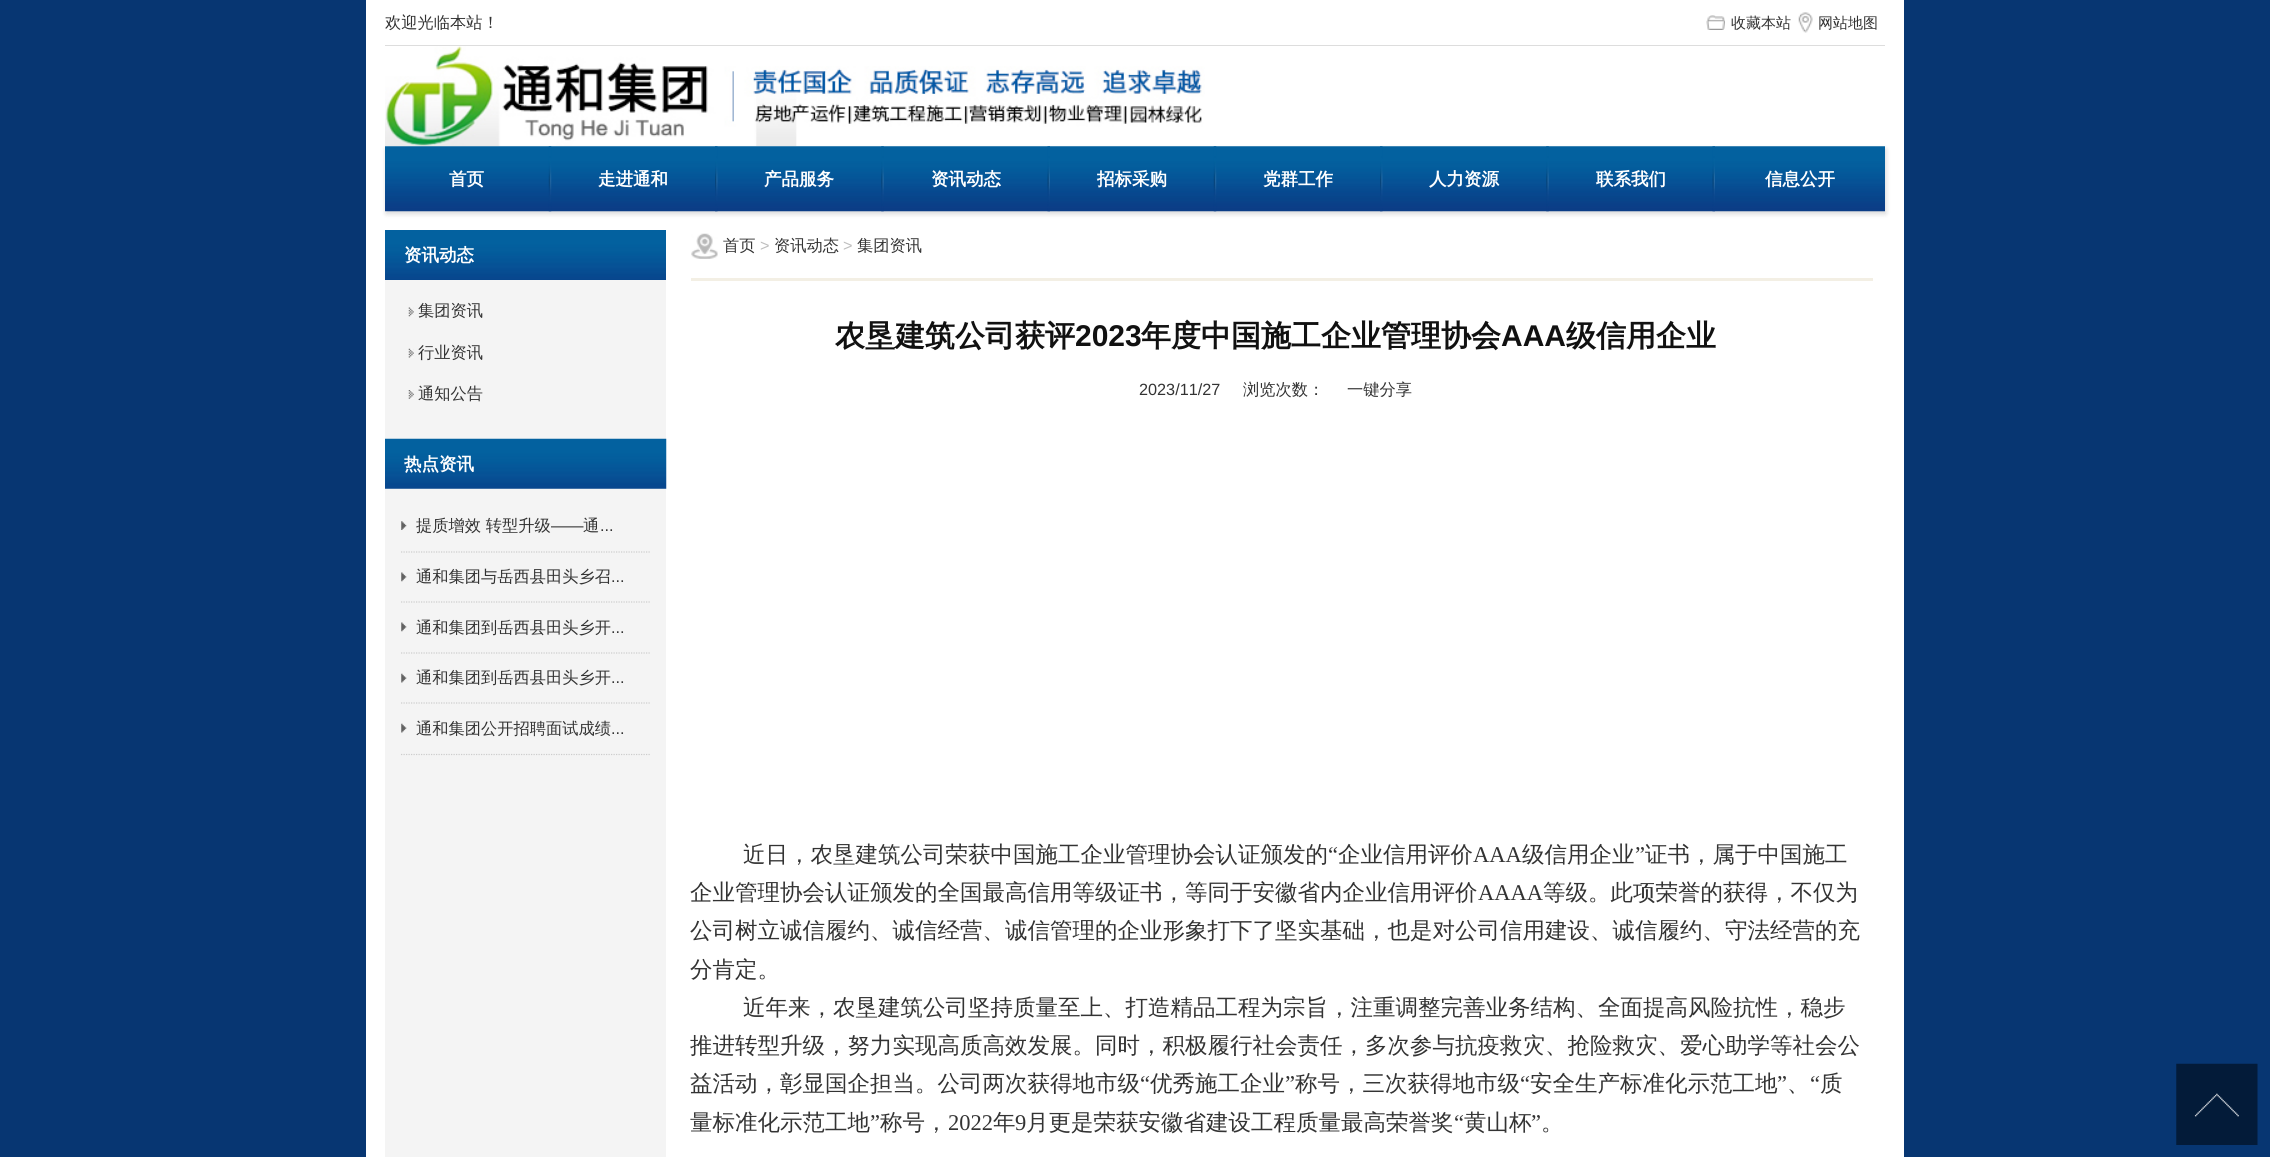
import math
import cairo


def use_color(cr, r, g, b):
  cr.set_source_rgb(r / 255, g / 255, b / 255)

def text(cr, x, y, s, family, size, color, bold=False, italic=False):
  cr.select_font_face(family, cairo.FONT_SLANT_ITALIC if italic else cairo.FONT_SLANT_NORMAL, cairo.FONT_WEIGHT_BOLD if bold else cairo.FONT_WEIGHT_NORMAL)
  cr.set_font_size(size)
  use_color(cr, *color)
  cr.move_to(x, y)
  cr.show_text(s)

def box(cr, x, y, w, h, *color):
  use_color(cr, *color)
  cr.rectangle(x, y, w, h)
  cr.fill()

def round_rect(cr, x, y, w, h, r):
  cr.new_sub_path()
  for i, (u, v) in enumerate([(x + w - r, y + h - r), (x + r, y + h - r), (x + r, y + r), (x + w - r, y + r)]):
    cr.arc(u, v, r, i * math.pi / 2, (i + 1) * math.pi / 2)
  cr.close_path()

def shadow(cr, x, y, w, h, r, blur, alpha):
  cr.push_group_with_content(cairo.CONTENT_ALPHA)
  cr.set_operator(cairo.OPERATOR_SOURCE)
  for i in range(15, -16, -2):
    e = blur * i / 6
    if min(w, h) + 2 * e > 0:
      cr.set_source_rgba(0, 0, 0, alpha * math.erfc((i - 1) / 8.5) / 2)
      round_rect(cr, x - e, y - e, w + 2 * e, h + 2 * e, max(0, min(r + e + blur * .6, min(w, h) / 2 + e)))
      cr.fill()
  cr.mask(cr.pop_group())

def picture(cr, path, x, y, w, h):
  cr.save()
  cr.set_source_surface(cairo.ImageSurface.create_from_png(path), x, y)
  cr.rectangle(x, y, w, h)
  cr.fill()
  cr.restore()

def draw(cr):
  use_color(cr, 7, 54, 114)
  cr.paint()
  box(cr, 366, 0, 1538, 1157, 255, 255, 255)
  box(cr, 385, 45, 1500, 1, 221, 221, 221)
  picture(cr, "img_01.png", 1706, 15, 19, 15)
  picture(cr, "img_02.png", 1798, 12, 15, 21)
  picture(cr, "img_03.png", 385, 46, 820, 100)
  use_color(cr, 0, 0, 0)
  shadow(cr, 386, 149, 1500, 65, 0, 2.5, 0.15)
  picture(cr, "img_04.png", 385, 146, 1500, 66)
  picture(cr, "img_05.png", 548, 146, 4, 66)
  picture(cr, "img_06.png", 715, 146, 3, 66)
  picture(cr, "img_07.png", 881, 146, 3, 66)
  picture(cr, "img_08.png", 1047, 146, 3, 66)
  picture(cr, "img_05.png", 1213, 146, 4, 66)
  picture(cr, "img_06.png", 1380, 146, 3, 66)
  picture(cr, "img_07.png", 1546, 146, 3, 66)
  picture(cr, "img_08.png", 1712, 146, 3, 66)
  box(cr, 385, 280, 281, 877, 244, 244, 244)
  picture(cr, "img_09.png", 385, 230, 281, 50)
  picture(cr, "img_10.png", 408, 307, 6, 10)
  picture(cr, "img_11.png", 408, 348, 6, 10)
  picture(cr, "img_12.png", 408, 390, 6, 9)
  picture(cr, "img_13.png", 385, 438, 282, 51)
  picture(cr, "img_14.png", 401, 521, 6, 9)
  cr.new_path()
  cr.move_to(401, 552)
  cr.line_to(650, 552)
  use_color(cr, 204, 204, 204)
  cr.set_line_width(1.2)
  cr.set_dash([1.25, 1.25])
  cr.stroke()
  picture(cr, "img_15.png", 401, 572, 6, 10)
  cr.new_path()
  cr.move_to(401, 602)
  cr.line_to(650, 602)
  cr.stroke()
  picture(cr, "img_15.png", 401, 622, 6, 10)
  cr.new_path()
  cr.move_to(401, 653)
  cr.line_to(650, 653)
  cr.stroke()
  picture(cr, "img_16.png", 401, 673, 6, 10)
  cr.new_path()
  cr.move_to(401, 703)
  cr.line_to(650, 703)
  cr.stroke()
  picture(cr, "img_16.png", 401, 723, 6, 10)
  cr.new_path()
  cr.move_to(401, 754.5)
  cr.line_to(650, 754.5)
  cr.stroke()
  picture(cr, "img_17.png", 691, 233, 27, 26)
  box(cr, 691, 278, 1182, 3, 243, 239, 228)
  picture(cr, "img_18.png", 2176, 1063, 82, 82)
  text(cr, 385, 28, "欢迎光临本站！", "WenQuanYi Zen Hei Medium", 16.25, (51, 51, 51))
  text(cr, 1731, 28, "收藏本站", "WenQuanYi Zen Hei Medium", 15, (51, 51, 51))
  text(cr, 1818, 28, "网站地图", "WenQuanYi Zen Hei Medium", 15, (51, 51, 51))
  text(cr, 449, 185, "首页", "WenQuanYi Zen Hei", 17.5, (255, 255, 255), bold=True)
  text(cr, 598, 185, "走进通和", "WenQuanYi Zen Hei", 17.5, (255, 255, 255), bold=True)
  text(cr, 764, 185, "产品服务", "WenQuanYi Zen Hei", 17.5, (255, 255, 255), bold=True)
  text(cr, 931, 185, "资讯动态", "WenQuanYi Zen Hei", 17.5, (255, 255, 255), bold=True)
  text(cr, 1097, 185, "招标采购", "WenQuanYi Zen Hei", 17.5, (255, 255, 255), bold=True)
  text(cr, 1263, 185, "党群工作", "WenQuanYi Zen Hei", 17.5, (255, 255, 255), bold=True)
  text(cr, 1429, 185, "人力资源", "WenQuanYi Zen Hei", 17.5, (255, 255, 255), bold=True)
  text(cr, 1596, 185, "联系我们", "WenQuanYi Zen Hei", 17.5, (255, 255, 255), bold=True)
  text(cr, 1765, 185, "信息公开", "WenQuanYi Zen Hei", 17.5, (255, 255, 255), bold=True)
  text(cr, 404, 261, "资讯动态", "WenQuanYi Zen Hei", 17.5, (255, 255, 255), bold=True)
  text(cr, 418, 316, "集团资讯", "WenQuanYi Zen Hei Medium", 16.25, (51, 51, 51))
  text(cr, 418, 358, "行业资讯", "WenQuanYi Zen Hei Medium", 16.25, (51, 51, 51))
  text(cr, 418, 399, "通知公告", "WenQuanYi Zen Hei Medium", 16.25, (51, 51, 51))
  text(cr, 404, 470, "热点资讯", "WenQuanYi Zen Hei", 17.5, (255, 255, 255), bold=True)
  text(cr, 416, 531, "提质增效 转型升级", "WenQuanYi Zen Hei Medium", 16.25, (51, 51, 51))
  text(cr, 551, 531, "——", "Liberation Sans", 16.25, (51, 51, 51))
  text(cr, 583, 531, "通", "WenQuanYi Zen Hei Medium", 16.25, (51, 51, 51))
  text(cr, 600, 531, "...", "Liberation Sans", 16.25, (51, 51, 51))
  text(cr, 416, 582, "通和集团与岳西县田头乡召", "WenQuanYi Zen Hei Medium", 16.25, (51, 51, 51))
  text(cr, 611, 582, "...", "Liberation Sans", 16.25, (51, 51, 51))
  text(cr, 416, 633, "通和集团到岳西县田头乡开", "WenQuanYi Zen Hei Medium", 16.25, (51, 51, 51))
  text(cr, 611, 633, "...", "Liberation Sans", 16.25, (51, 51, 51))
  text(cr, 416, 683, "通和集团到岳西县田头乡开", "WenQuanYi Zen Hei Medium", 16.25, (51, 51, 51))
  text(cr, 611, 683, "...", "Liberation Sans", 16.25, (51, 51, 51))
  text(cr, 416, 734, "通和集团公开招聘面试成绩", "WenQuanYi Zen Hei Medium", 16.25, (51, 51, 51))
  text(cr, 611, 734, "...", "Liberation Sans", 16.25, (51, 51, 51))
  text(cr, 723, 251, "首页", "WenQuanYi Zen Hei Medium", 16.25, (51, 51, 51))
  text(cr, 760, 251, ">", "Liberation Sans", 16.25, (190, 190, 190))
  text(cr, 774, 251, "资讯动态", "WenQuanYi Zen Hei Medium", 16.25, (51, 51, 51))
  text(cr, 843, 251, ">", "Liberation Sans", 16.25, (190, 190, 190))
  text(cr, 857, 251, "集团资讯", "WenQuanYi Zen Hei Medium", 16.25, (51, 51, 51))
  text(cr, 835, 346, "农垦建筑公司获评", "WenQuanYi Zen Hei", 30, (17, 17, 17), bold=True)
  text(cr, 1075, 346, "2023", "Liberation Sans", 30, (17, 17, 17), bold=True)
  text(cr, 1141, 346, "年度中国施工企业管理协会", "WenQuanYi Zen Hei", 30, (17, 17, 17), bold=True)
  text(cr, 1501, 346, "AAA", "Liberation Sans", 30, (17, 17, 17), bold=True)
  text(cr, 1566, 346, "级信用企业", "WenQuanYi Zen Hei", 30, (17, 17, 17), bold=True)
  text(cr, 1139, 395, "2023/11/27", "Liberation Sans", 16.25, (51, 51, 51))
  text(cr, 1243, 395, "浏览次数：", "WenQuanYi Zen Hei Medium", 16.25, (51, 51, 51))
  text(cr, 1347, 395, "一键分享", "WenQuanYi Zen Hei Medium", 16.25, (51, 51, 51))
  text(cr, 743, 862, "近日，农垦建筑公司荣获中国施工企业管理协会认证颁发的", "WenQuanYi Zen Hei Medium", 22.5, (51, 51, 51))
  text(cr, 1328, 862, "“", "Liberation Serif", 22.5, (51, 51, 51))
  text(cr, 1338, 862, "企业信用评价", "WenQuanYi Zen Hei Medium", 22.5, (51, 51, 51))
  text(cr, 1473, 862, "AAA", "Liberation Serif", 22.5, (51, 51, 51))
  text(cr, 1522, 862, "级信用企业", "WenQuanYi Zen Hei Medium", 22.5, (51, 51, 51))
  text(cr, 1635, 862, "”", "Liberation Serif", 22.5, (51, 51, 51))
  text(cr, 1645, 862, "证书，属于中国施工", "WenQuanYi Zen Hei Medium", 22.5, (51, 51, 51))
  text(cr, 690, 900, "企业管理协会认证颁发的全国最高信用等级证书，等同于安徽省内企业信用评价", "WenQuanYi Zen Hei Medium", 22.5, (51, 51, 51))
  text(cr, 1478, 900, "AAAA", "Liberation Serif", 22.5, (51, 51, 51))
  text(cr, 1543, 900, "等级。此项荣誉的获得，不仅为", "WenQuanYi Zen Hei Medium", 22.5, (51, 51, 51))
  text(cr, 690, 938, "公司树立诚信履约、诚信经营、诚信管理的企业形象打下了坚实基础，也是对公司信用建设、诚信履约、守法经营的充", "WenQuanYi Zen Hei Medium", 22.5, (51, 51, 51))
  text(cr, 690, 977, "分肯定。", "WenQuanYi Zen Hei Medium", 22.5, (51, 51, 51))
  text(cr, 743, 1015, "近年来，农垦建筑公司坚持质量至上、打造精品工程为宗旨，注重调整完善业务结构、全面提高风险抗性，稳步", "WenQuanYi Zen Hei Medium", 22.5, (51, 51, 51))
  text(cr, 690, 1053, "推进转型升级，努力实现高质高效发展。同时，积极履行社会责任，多次参与抗疫救灾、抢险救灾、爱心助学等社会公", "WenQuanYi Zen Hei Medium", 22.5, (51, 51, 51))
  text(cr, 690, 1091, "益活动，彰显国企担当。公司两次获得地市级", "WenQuanYi Zen Hei Medium", 22.5, (51, 51, 51))
  text(cr, 1140, 1091, "“", "Liberation Serif", 22.5, (51, 51, 51))
  text(cr, 1150, 1091, "优秀施工企业", "WenQuanYi Zen Hei Medium", 22.5, (51, 51, 51))
  text(cr, 1285, 1091, "”", "Liberation Serif", 22.5, (51, 51, 51))
  text(cr, 1295, 1091, "称号，三次获得地市级", "WenQuanYi Zen Hei Medium", 22.5, (51, 51, 51))
  text(cr, 1520, 1091, "“", "Liberation Serif", 22.5, (51, 51, 51))
  text(cr, 1530, 1091, "安全生产标准化示范工地", "WenQuanYi Zen Hei Medium", 22.5, (51, 51, 51))
  text(cr, 1777, 1091, "”", "Liberation Serif", 22.5, (51, 51, 51))
  text(cr, 1810, 1091, "“", "Liberation Serif", 22.5, (51, 51, 51))
  text(cr, 1820, 1091, "质", "WenQuanYi Zen Hei Medium", 22.5, (51, 51, 51))
  text(cr, 1787, 1091, "、", "WenQuanYi Zen Hei Medium", 22.5, (51, 51, 51))
  text(cr, 690, 1130, "量标准化示范工地", "WenQuanYi Zen Hei Medium", 22.5, (51, 51, 51))
  text(cr, 870, 1130, "”", "Liberation Serif", 22.5, (51, 51, 51))
  text(cr, 880, 1130, "称号，", "WenQuanYi Zen Hei Medium", 22.5, (51, 51, 51))
  text(cr, 948, 1130, "2022", "Liberation Serif", 22.5, (51, 51, 51))
  text(cr, 993, 1130, "年", "WenQuanYi Zen Hei Medium", 22.5, (51, 51, 51))
  text(cr, 1015, 1130, "9", "Liberation Serif", 22.5, (51, 51, 51))
  text(cr, 1026, 1130, "月更是荣获安徽省建设工程质量最高荣誉奖", "WenQuanYi Zen Hei Medium", 22.5, (51, 51, 51))
  text(cr, 1454, 1130, "“", "Liberation Serif", 22.5, (51, 51, 51))
  text(cr, 1464, 1130, "黄山杯", "WenQuanYi Zen Hei Medium", 22.5, (51, 51, 51))
  text(cr, 1531, 1130, "”", "Liberation Serif", 22.5, (51, 51, 51))
  text(cr, 1541, 1130, "。", "WenQuanYi Zen Hei Medium", 22.5, (51, 51, 51))


surface = cairo.ImageSurface(cairo.FORMAT_RGB24, 2270, 1157)
cr = cairo.Context(surface)
options = cairo.FontOptions()
options.set_hint_metrics(cairo.HINT_METRICS_OFF)
options.set_hint_style(cairo.HINT_STYLE_NONE)
cr.set_font_options(options)
cr.set_miter_limit(4)
draw(cr)
surface.write_to_png("out.png")
